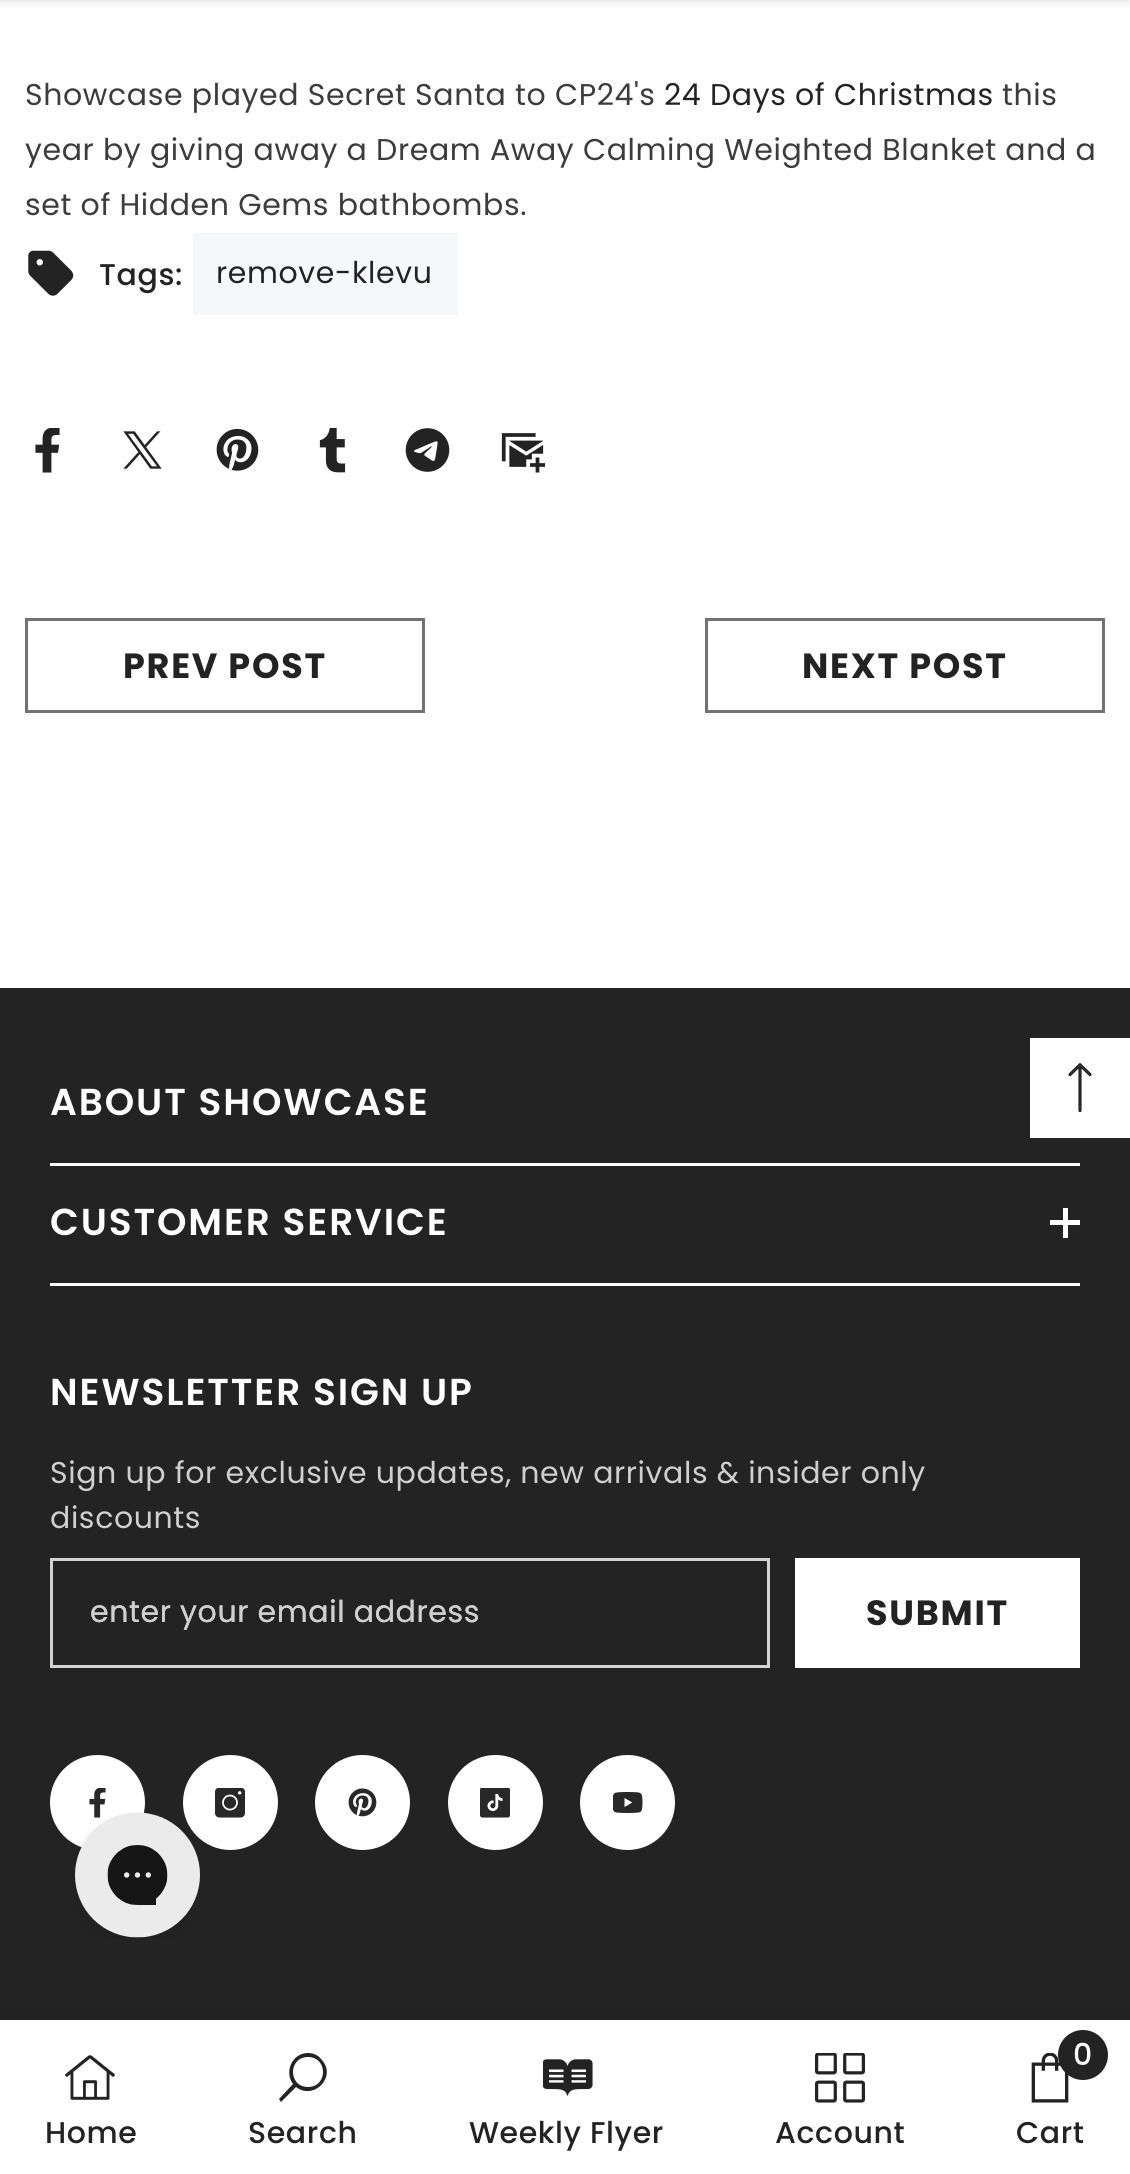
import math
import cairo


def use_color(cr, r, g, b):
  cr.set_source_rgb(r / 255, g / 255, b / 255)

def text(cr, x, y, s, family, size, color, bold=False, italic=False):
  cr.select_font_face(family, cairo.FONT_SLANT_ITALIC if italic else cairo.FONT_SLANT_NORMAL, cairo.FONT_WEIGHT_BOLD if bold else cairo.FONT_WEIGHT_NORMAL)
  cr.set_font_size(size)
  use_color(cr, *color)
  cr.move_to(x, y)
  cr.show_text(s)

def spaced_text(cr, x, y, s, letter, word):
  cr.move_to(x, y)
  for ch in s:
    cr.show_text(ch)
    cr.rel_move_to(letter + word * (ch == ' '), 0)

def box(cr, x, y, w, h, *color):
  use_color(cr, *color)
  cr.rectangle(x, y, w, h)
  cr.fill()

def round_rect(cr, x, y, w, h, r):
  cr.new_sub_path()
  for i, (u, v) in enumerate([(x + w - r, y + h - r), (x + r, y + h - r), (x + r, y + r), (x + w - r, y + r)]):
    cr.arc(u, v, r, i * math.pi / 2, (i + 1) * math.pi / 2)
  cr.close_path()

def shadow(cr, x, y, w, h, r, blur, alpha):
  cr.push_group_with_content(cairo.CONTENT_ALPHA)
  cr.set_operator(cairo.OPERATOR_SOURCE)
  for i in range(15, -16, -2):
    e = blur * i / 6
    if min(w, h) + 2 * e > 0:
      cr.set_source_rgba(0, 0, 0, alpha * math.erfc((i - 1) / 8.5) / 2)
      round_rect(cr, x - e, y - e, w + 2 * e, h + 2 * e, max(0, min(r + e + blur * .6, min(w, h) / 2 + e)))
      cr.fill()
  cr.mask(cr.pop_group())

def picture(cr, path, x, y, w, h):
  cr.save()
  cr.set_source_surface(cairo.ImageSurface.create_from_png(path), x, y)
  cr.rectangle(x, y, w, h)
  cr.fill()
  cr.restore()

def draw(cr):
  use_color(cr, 255, 255, 255)
  cr.paint()
  use_color(cr, 0, 0, 0)
  shadow(cr, 0, -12, 1130, 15, 0, 4, 0.1)
  picture(cr, "img_01.png", 28, 250, 46, 46)
  box(cr, 193, 233, 265, 82, 246, 247, 248)
  picture(cr, "img_02.png", 35, 428, 25, 45)
  picture(cr, "img_03.png", 123, 431, 39, 38)
  picture(cr, "img_04.png", 216, 428, 43, 43)
  picture(cr, "img_05.png", 319, 428, 27, 45)
  picture(cr, "img_06.png", 405, 428, 45, 44)
  picture(cr, "img_07.png", 501, 433, 44, 40)
  cr.rectangle(26.5, 619.5, 397, 92)
  use_color(cr, 114, 114, 114)
  cr.set_line_width(3)
  cr.stroke()
  cr.rectangle(706.5, 619.5, 397, 92)
  cr.stroke()
  box(cr, 0, 988, 1130, 1032, 35, 35, 35)
  cr.rectangle(51.5, 1559.5, 717, 107)
  use_color(cr, 211, 211, 211)
  cr.stroke()
  picture(cr, "img_08.png", 91, 1599, 387, 31)
  picture(cr, "img_09.png", 91, 1599, 387, 31)
  box(cr, 50, 1163, 1030, 3, 255, 255, 255)
  box(cr, 50, 1283, 1030, 3, 255, 255, 255)
  box(cr, 1063, 1208, 5, 30, 255, 255, 255)
  box(cr, 1050, 1220, 30, 5, 255, 255, 255)
  box(cr, 795, 1558, 285, 110, 255, 255, 255)
  cr.arc(97.5, 1802.5, 46, 0, 2 * math.pi)
  cr.fill_preserve()
  cr.stroke()
  picture(cr, "img_10.png", 89, 1788, 17, 30)
  cr.arc(230.5, 1802.5, 46, 0, 2 * math.pi)
  cr.fill_preserve()
  cr.stroke()
  picture(cr, "img_11.png", 215, 1788, 30, 30)
  cr.arc(362.5, 1802.5, 46, 0, 2 * math.pi)
  cr.fill_preserve()
  cr.stroke()
  picture(cr, "img_12.png", 348, 1788, 29, 29)
  cr.arc(495.5, 1802.5, 46, 0, 2 * math.pi)
  cr.fill_preserve()
  cr.stroke()
  picture(cr, "img_13.png", 480, 1788, 30, 30)
  cr.arc(627.5, 1802.5, 46, 0, 2 * math.pi)
  cr.fill_preserve()
  cr.stroke()
  picture(cr, "img_14.png", 613, 1792, 30, 21)
  use_color(cr, 0, 0, 0)
  shadow(cr, 0, 2020, 1130, 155, 0, 11, 0.12)
  box(cr, 0, 2020, 1130, 154, 255, 255, 255)
  picture(cr, "img_15.png", 65, 2055, 50, 45)
  use_color(cr, 35, 35, 35)
  cr.new_path()
  cr.move_to(308, 2053)
  cr.curve_to(292, 2053, 284, 2072, 293, 2084)
  cr.line_to(279, 2099)
  cr.line_to(281, 2102)
  cr.line_to(296, 2087)
  cr.curve_to(314, 2101, 338, 2076, 321, 2059)
  cr.curve_to(318, 2055, 313, 2053, 308, 2053)
  cr.close_path()
  cr.move_to(308, 2057)
  cr.curve_to(328, 2057, 328, 2087, 308, 2087)
  cr.curve_to(288, 2087, 288, 2057, 308, 2057)
  cr.close_path()
  cr.fill()
  picture(cr, "img_16.png", 543, 2059, 50, 37)
  picture(cr, "img_17.png", 815, 2053, 50, 50)
  picture(cr, "img_18.png", 1031, 2053, 38, 50)
  cr.arc(1083, 2055, 25, 0, 2 * math.pi)
  cr.fill()
  box(cr, 1030, 1038, 100, 100, 255, 255, 255)
  picture(cr, "img_19.png", 1068, 1063, 24, 49)
  picture(cr, "img_20.png", 75, 1812, 125, 126)
  cr.select_font_face("Poppins")
  cr.set_font_size(30)
  use_color(cr, 60, 60, 60)
  spaced_text(cr, 25, 105, "Showcase played Secret Santa to CP24's", 0.6, 0)
  use_color(cr, 35, 35, 35)
  spaced_text(cr, 664, 105, "24 Days of Christmas", 0.6, 0)
  use_color(cr, 60, 60, 60)
  spaced_text(cr, 1002, 105, "this", 0.6, 0)
  spaced_text(cr, 25, 160, "year by giving away a Dream Away Calming Weighted Blanket and a", 0.6, 0)
  spaced_text(cr, 25, 215, "set of Hidden Gems bathbombs.", 0.6, 0)
  cr.select_font_face("Poppins Medium")
  use_color(cr, 35, 35, 35)
  spaced_text(cr, 99, 285, "Tags:", 0.6, 0)
  cr.select_font_face("Poppins")
  spaced_text(cr, 216, 283, "remove-klevu", 0.6, 0)
  cr.select_font_face("Poppins", cairo.FONT_SLANT_NORMAL, cairo.FONT_WEIGHT_BOLD)
  cr.set_font_size(35)
  spaced_text(cr, 123, 678, "PREV POST", 1.75, 0)
  spaced_text(cr, 802, 678, "NEXT POST", 1.75, 0)
  cr.select_font_face("Poppins SemiBold")
  cr.set_font_size(37.5)
  use_color(cr, 255, 255, 255)
  spaced_text(cr, 50, 1115, "ABOUT SHOWCASE", 1.9, 0)
  spaced_text(cr, 50, 1235, "CUSTOMER SERVICE", 1.9, 0)
  spaced_text(cr, 50, 1405, "NEWSLETTER SIGN UP", 1.9, 0)
  cr.select_font_face("Poppins")
  cr.set_font_size(30)
  use_color(cr, 207, 207, 207)
  spaced_text(cr, 50, 1483, "Sign up for exclusive updates, new arrivals & insider only", 0.6, 0)
  spaced_text(cr, 50, 1528, "discounts", 0.6, 0)
  cr.select_font_face("Poppins", cairo.FONT_SLANT_NORMAL, cairo.FONT_WEIGHT_BOLD)
  cr.set_font_size(35)
  use_color(cr, 35, 35, 35)
  spaced_text(cr, 866, 1625, "SUBMIT", 1.75, 0)
  cr.select_font_face("Poppins Medium")
  cr.set_font_size(30)
  spaced_text(cr, 45, 2143, "Home", 0.6, 0)
  spaced_text(cr, 248, 2143, "Search", 0.6, 0)
  spaced_text(cr, 469, 2143, "Weekly Flyer", 0.6, 0)
  spaced_text(cr, 775, 2143, "Account", 0.6, 0)
  text(cr, 1073, 2065, "0", "Poppins Medium", 30, (255, 255, 255))
  use_color(cr, 35, 35, 35)
  spaced_text(cr, 1016, 2143, "Cart", 0.6, 0)


surface = cairo.ImageSurface(cairo.FORMAT_RGB24, 1130, 2174)
cr = cairo.Context(surface)
options = cairo.FontOptions()
options.set_hint_metrics(cairo.HINT_METRICS_OFF)
options.set_hint_style(cairo.HINT_STYLE_NONE)
cr.set_font_options(options)
cr.set_miter_limit(4)
draw(cr)
surface.write_to_png("out.png")
